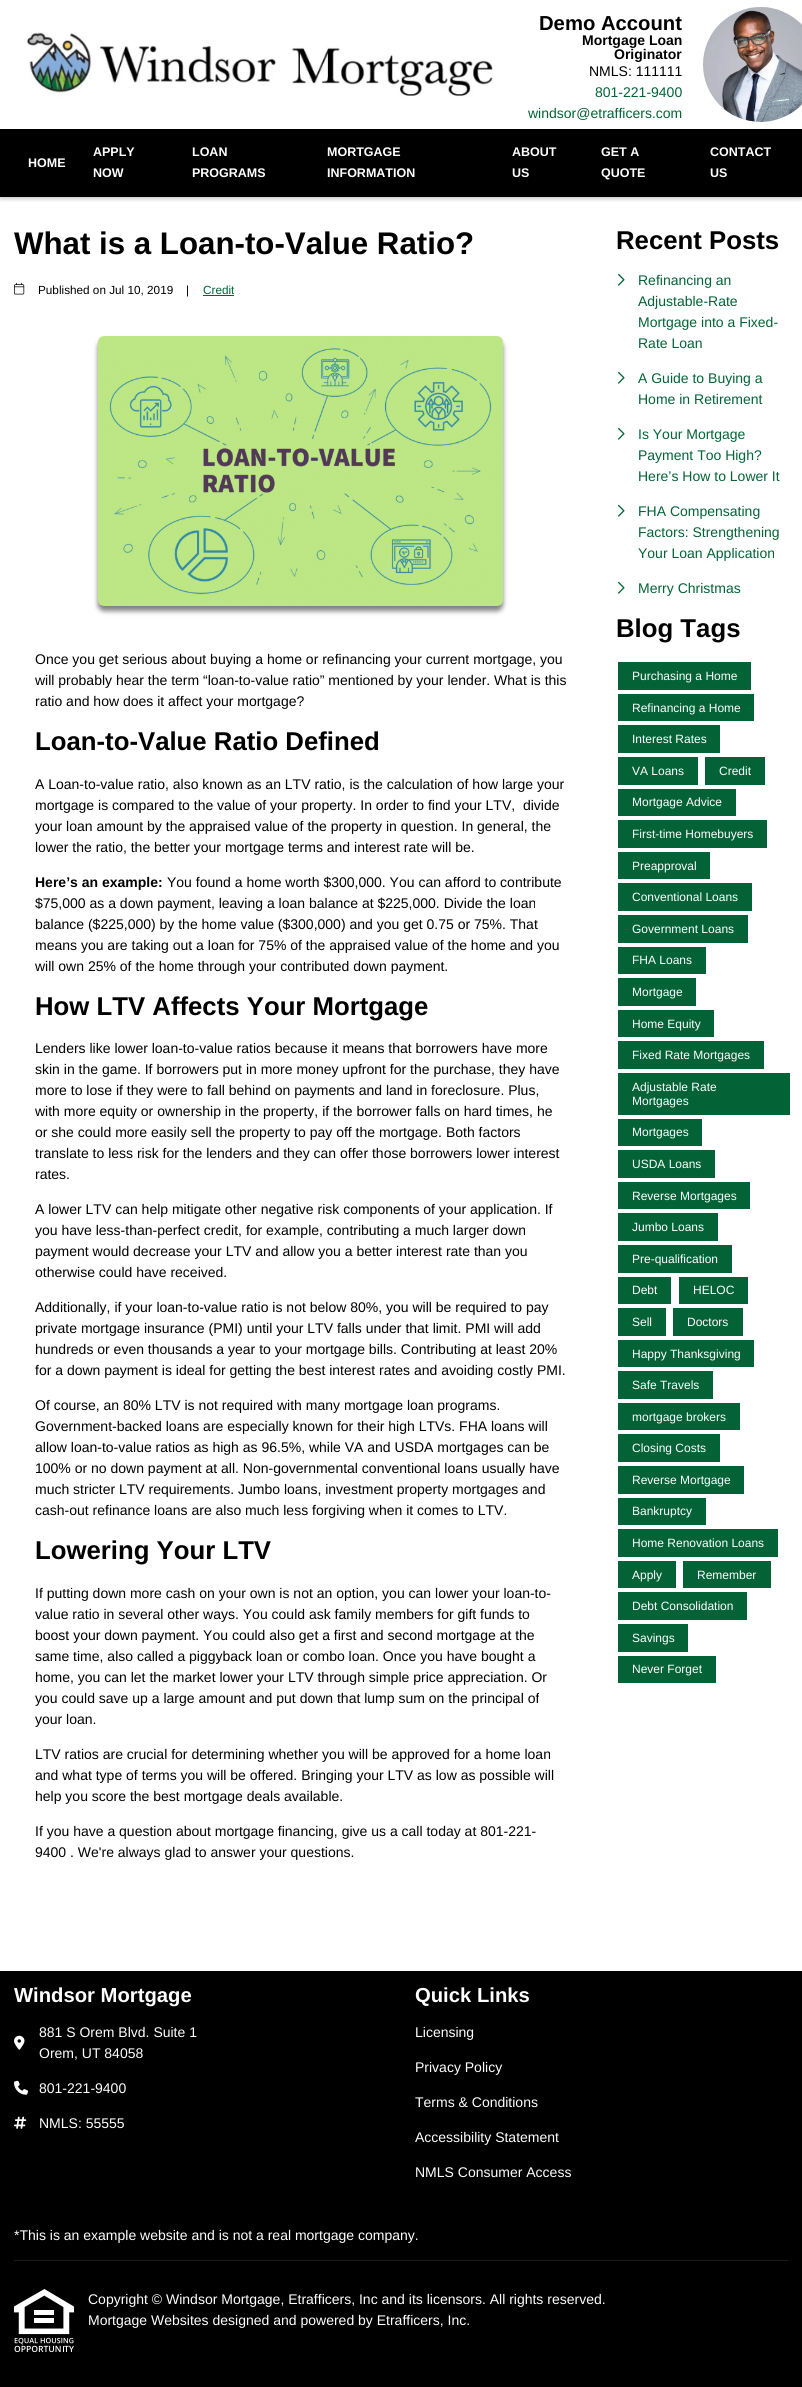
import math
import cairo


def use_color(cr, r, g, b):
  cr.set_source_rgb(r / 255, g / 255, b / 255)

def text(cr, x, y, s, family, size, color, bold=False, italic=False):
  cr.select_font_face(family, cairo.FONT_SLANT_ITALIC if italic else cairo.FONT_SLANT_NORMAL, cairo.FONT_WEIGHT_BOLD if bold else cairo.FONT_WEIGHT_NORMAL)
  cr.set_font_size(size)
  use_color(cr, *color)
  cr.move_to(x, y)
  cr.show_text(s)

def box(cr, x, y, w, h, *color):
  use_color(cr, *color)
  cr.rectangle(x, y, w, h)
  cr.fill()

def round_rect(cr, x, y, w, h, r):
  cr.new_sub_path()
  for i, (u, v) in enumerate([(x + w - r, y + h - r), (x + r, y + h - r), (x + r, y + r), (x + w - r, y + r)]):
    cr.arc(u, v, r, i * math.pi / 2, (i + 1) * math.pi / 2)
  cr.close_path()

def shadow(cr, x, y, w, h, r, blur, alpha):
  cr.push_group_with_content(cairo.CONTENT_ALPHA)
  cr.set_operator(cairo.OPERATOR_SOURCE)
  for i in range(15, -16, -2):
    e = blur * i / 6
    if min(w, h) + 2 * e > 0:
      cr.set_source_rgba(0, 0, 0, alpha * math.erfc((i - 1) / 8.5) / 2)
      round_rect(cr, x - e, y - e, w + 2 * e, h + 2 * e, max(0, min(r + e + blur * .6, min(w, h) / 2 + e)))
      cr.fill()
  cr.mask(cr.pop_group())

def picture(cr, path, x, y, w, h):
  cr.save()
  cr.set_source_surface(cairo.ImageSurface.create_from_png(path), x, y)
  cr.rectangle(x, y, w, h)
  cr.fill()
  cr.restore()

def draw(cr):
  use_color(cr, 255, 255, 255)
  cr.paint()
  cr.save()
  cr.rectangle(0, 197, 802, 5)
  cr.clip()
  use_color(cr, 0, 0, 0)
  shadow(cr, 0, 1, 802, 197, 0, 5, 0.1)
  cr.restore()
  cr.save()
  cr.rectangle(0, 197, 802, 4)
  cr.clip()
  use_color(cr, 0, 0, 0)
  shadow(cr, 1, 3, 800, 195, 0, 2, 0.2)
  cr.restore()
  picture(cr, "img_01.png", 27, 32, 467, 65)
  picture(cr, "img_02.png", 703, 7, 99, 115)
  box(cr, 0, 129, 802, 68, 0, 0, 0)
  picture(cr, "img_03.png", 14, 282, 11, 13)
  box(cr, 203, 295, 31, 1, 3, 99, 54)
  use_color(cr, 0, 0, 0)
  shadow(cr, 98, 341, 405, 270, 6, 2.5, 0.5)
  picture(cr, "img_04.png", 98, 336, 405, 270)
  picture(cr, "img_05.png", 618, 273, 7, 13)
  picture(cr, "img_05.png", 618, 371, 7, 13)
  picture(cr, "img_05.png", 618, 427, 7, 13)
  picture(cr, "img_05.png", 618, 504, 7, 13)
  picture(cr, "img_05.png", 618, 581, 7, 13)
  box(cr, 618, 662, 133, 28, 3, 99, 54)
  box(cr, 618, 694, 136, 27, 3, 99, 54)
  box(cr, 618, 725, 102, 28, 3, 99, 54)
  box(cr, 618, 757, 80, 28, 3, 99, 54)
  box(cr, 705, 757, 60, 28, 3, 99, 54)
  box(cr, 618, 789, 118, 27, 3, 99, 54)
  box(cr, 618, 820, 149, 28, 3, 99, 54)
  box(cr, 618, 852, 92, 27, 3, 99, 54)
  box(cr, 618, 883, 134, 28, 3, 99, 54)
  box(cr, 618, 915, 130, 28, 3, 99, 54)
  box(cr, 618, 947, 88, 27, 3, 99, 54)
  box(cr, 618, 978, 78, 28, 3, 99, 54)
  box(cr, 618, 1010, 96, 27, 3, 99, 54)
  box(cr, 618, 1041, 146, 28, 3, 99, 54)
  box(cr, 618, 1073, 172, 42, 3, 99, 54)
  box(cr, 618, 1119, 84, 27, 3, 99, 54)
  box(cr, 618, 1150, 97, 28, 3, 99, 54)
  box(cr, 618, 1182, 132, 27, 3, 99, 54)
  box(cr, 618, 1213, 100, 28, 3, 99, 54)
  box(cr, 618, 1245, 114, 28, 3, 99, 54)
  box(cr, 618, 1277, 53, 27, 3, 99, 54)
  box(cr, 679, 1277, 69, 27, 3, 99, 54)
  box(cr, 618, 1308, 48, 28, 3, 99, 54)
  box(cr, 673, 1308, 70, 28, 3, 99, 54)
  box(cr, 618, 1340, 136, 27, 3, 99, 54)
  box(cr, 618, 1371, 95, 28, 3, 99, 54)
  box(cr, 618, 1403, 122, 27, 3, 99, 54)
  box(cr, 618, 1434, 102, 28, 3, 99, 54)
  box(cr, 618, 1466, 126, 28, 3, 99, 54)
  box(cr, 618, 1498, 88, 27, 3, 99, 54)
  box(cr, 618, 1529, 160, 28, 3, 99, 54)
  box(cr, 618, 1561, 58, 27, 3, 99, 54)
  box(cr, 683, 1561, 88, 27, 3, 99, 54)
  box(cr, 618, 1592, 129, 28, 3, 99, 54)
  box(cr, 618, 1624, 70, 28, 3, 99, 54)
  box(cr, 618, 1656, 98, 27, 3, 99, 54)
  box(cr, 0, 1971, 802, 416, 0, 0, 0)
  picture(cr, "img_06.png", 14, 2035, 11, 15)
  picture(cr, "img_07.png", 14, 2080, 14, 15)
  picture(cr, "img_08.png", 14, 2116, 13, 13)
  box(cr, 14, 2260, 774, 1, 26, 26, 26)
  picture(cr, "img_09.png", 14, 2289, 60, 64)
  text(cr, 539, 30, "Demo Account", "Liberation Sans", 20.25, (0, 0, 0), bold=True)
  text(cr, 582, 45, "Mortgage Loan", "Liberation Sans", 14, (0, 0, 0), bold=True)
  text(cr, 614, 59, "Originator", "Liberation Sans", 14, (0, 0, 0), bold=True)
  text(cr, 589, 76, "NMLS: 111111", "Liberation Sans", 14, (0, 0, 0))
  text(cr, 595, 97, "801-221-9400", "Liberation Sans", 14, (3, 99, 54))
  text(cr, 528, 118, "windsor@etrafficers.com", "Liberation Sans", 14, (3, 99, 54))
  text(cr, 28, 167, "HOME", "Liberation Sans", 12.5, (255, 255, 255), bold=True)
  text(cr, 93, 156, "APPLY", "Liberation Sans", 12.5, (255, 255, 255), bold=True)
  text(cr, 93, 177, "NOW", "Liberation Sans", 12.5, (255, 255, 255), bold=True)
  text(cr, 192, 156, "LOAN", "Liberation Sans", 12.5, (255, 255, 255), bold=True)
  text(cr, 192, 177, "PROGRAMS", "Liberation Sans", 12.5, (255, 255, 255), bold=True)
  text(cr, 327, 156, "MORTGAGE", "Liberation Sans", 12.5, (255, 255, 255), bold=True)
  text(cr, 327, 177, "INFORMATION", "Liberation Sans", 12.5, (255, 255, 255), bold=True)
  text(cr, 512, 156, "ABOUT", "Liberation Sans", 12.5, (255, 255, 255), bold=True)
  text(cr, 512, 177, "US", "Liberation Sans", 12.5, (255, 255, 255), bold=True)
  text(cr, 601, 156, "GET A", "Liberation Sans", 12.5, (255, 255, 255), bold=True)
  text(cr, 601, 177, "QUOTE", "Liberation Sans", 12.5, (255, 255, 255), bold=True)
  text(cr, 710, 156, "CONTACT", "Liberation Sans", 12.5, (255, 255, 255), bold=True)
  text(cr, 710, 177, "US", "Liberation Sans", 12.5, (255, 255, 255), bold=True)
  text(cr, 14, 254, "What is a Loan-to-Value Ratio?", "Liberation Sans", 31.25, (0, 0, 0), bold=True)
  text(cr, 38, 294, "Published on Jul 10, 2019", "Liberation Sans", 11.75, (0, 0, 0))
  text(cr, 186, 294, "|", "Liberation Sans", 11.75, (0, 0, 0))
  text(cr, 203, 294, "Credit", "Liberation Sans", 11.75, (3, 99, 54))
  text(cr, 35, 664, "Once you get serious about buying a home or refinancing your current mortgage, you", "Liberation Sans", 14, (0, 0, 0))
  text(cr, 35, 685, "will probably hear the term “loan-to-value ratio” mentioned by your lender. What is this", "Liberation Sans", 14, (0, 0, 0))
  text(cr, 35, 706, "ratio and how does it affect your mortgage?", "Liberation Sans", 14, (0, 0, 0))
  text(cr, 35, 750, "Loan-to-Value Ratio Defined", "Liberation Sans", 25.75, (0, 0, 0), bold=True)
  text(cr, 35, 789, "A Loan-to-value ratio, also known as an LTV ratio, is the calculation of how large your", "Liberation Sans", 14, (0, 0, 0))
  text(cr, 35, 810, "mortgage is compared to the value of your property. In order to find your LTV,  divide", "Liberation Sans", 14, (0, 0, 0))
  text(cr, 35, 831, "your loan amount by the appraised value of the property in question. In general, the", "Liberation Sans", 14, (0, 0, 0))
  text(cr, 35, 852, "lower the ratio, the better your mortgage terms and interest rate will be.", "Liberation Sans", 14, (0, 0, 0))
  text(cr, 35, 887, "Here’s an example:", "Liberation Sans", 14, (0, 0, 0), bold=True)
  text(cr, 167, 887, "You found a home worth $300,000. You can afford to contribute", "Liberation Sans", 14, (0, 0, 0))
  text(cr, 35, 908, "$75,000 as a down payment, leaving a loan balance at $225,000. Divide the loan", "Liberation Sans", 14, (0, 0, 0))
  text(cr, 35, 929, "balance ($225,000) by the home value ($300,000) and you get 0.75 or 75%. That", "Liberation Sans", 14, (0, 0, 0))
  text(cr, 35, 950, "means you are taking out a loan for 75% of the appraised value of the home and you", "Liberation Sans", 14, (0, 0, 0))
  text(cr, 35, 971, "will own 25% of the home through your contributed down payment.", "Liberation Sans", 14, (0, 0, 0))
  text(cr, 35, 1015, "How LTV Affects Your Mortgage", "Liberation Sans", 25.75, (0, 0, 0), bold=True)
  text(cr, 35, 1053, "Lenders like lower loan-to-value ratios because it means that borrowers have more", "Liberation Sans", 14, (0, 0, 0))
  text(cr, 35, 1074, "skin in the game. If borrowers put in more money upfront for the purchase, they have", "Liberation Sans", 14, (0, 0, 0))
  text(cr, 35, 1095, "more to lose if they were to fall behind on payments and land in foreclosure. Plus,", "Liberation Sans", 14, (0, 0, 0))
  text(cr, 35, 1116, "with more equity or ownership in the property, if the borrower falls on hard times, he", "Liberation Sans", 14, (0, 0, 0))
  text(cr, 35, 1137, "or she could more easily sell the property to pay off the mortgage. Both factors", "Liberation Sans", 14, (0, 0, 0))
  text(cr, 35, 1158, "translate to less risk for the lenders and they can offer those borrowers lower interest", "Liberation Sans", 14, (0, 0, 0))
  text(cr, 35, 1179, "rates.", "Liberation Sans", 14, (0, 0, 0))
  text(cr, 35, 1214, "A lower LTV can help mitigate other negative risk components of your application. If", "Liberation Sans", 14, (0, 0, 0))
  text(cr, 35, 1235, "you have less-than-perfect credit, for example, contributing a much larger down", "Liberation Sans", 14, (0, 0, 0))
  text(cr, 35, 1256, "payment would decrease your LTV and allow you a better interest rate than you", "Liberation Sans", 14, (0, 0, 0))
  text(cr, 35, 1277, "otherwise could have received.", "Liberation Sans", 14, (0, 0, 0))
  text(cr, 35, 1312, "Additionally, if your loan-to-value ratio is not below 80%, you will be required to pay", "Liberation Sans", 14, (0, 0, 0))
  text(cr, 35, 1333, "private mortgage insurance (PMI) until your LTV falls under that limit. PMI will add", "Liberation Sans", 14, (0, 0, 0))
  text(cr, 35, 1354, "hundreds or even thousands a year to your mortgage bills. Contributing at least 20%", "Liberation Sans", 14, (0, 0, 0))
  text(cr, 35, 1375, "for a down payment is ideal for getting the best interest rates and avoiding costly PMI.", "Liberation Sans", 14, (0, 0, 0))
  text(cr, 35, 1410, "Of course, an 80% LTV is not required with many mortgage loan programs.", "Liberation Sans", 14, (0, 0, 0))
  text(cr, 35, 1431, "Government-backed loans are especially known for their high LTVs. FHA loans will", "Liberation Sans", 14, (0, 0, 0))
  text(cr, 35, 1452, "allow loan-to-value ratios as high as 96.5%, while VA and USDA mortgages can be", "Liberation Sans", 14, (0, 0, 0))
  text(cr, 35, 1473, "100% or no down payment at all. Non-governmental conventional loans usually have", "Liberation Sans", 14, (0, 0, 0))
  text(cr, 35, 1494, "much stricter LTV requirements. Jumbo loans, investment property mortgages and", "Liberation Sans", 14, (0, 0, 0))
  text(cr, 35, 1515, "cash-out refinance loans are also much less forgiving when it comes to LTV.", "Liberation Sans", 14, (0, 0, 0))
  text(cr, 35, 1559, "Lowering Your LTV", "Liberation Sans", 25.75, (0, 0, 0), bold=True)
  text(cr, 35, 1598, "If putting down more cash on your own is not an option, you can lower your loan-to-", "Liberation Sans", 14, (0, 0, 0))
  text(cr, 35, 1619, "value ratio in several other ways. You could ask family members for gift funds to", "Liberation Sans", 14, (0, 0, 0))
  text(cr, 35, 1640, "boost your down payment. You could also get a first and second mortgage at the", "Liberation Sans", 14, (0, 0, 0))
  text(cr, 35, 1661, "same time, also called a piggyback loan or combo loan. Once you have bought a", "Liberation Sans", 14, (0, 0, 0))
  text(cr, 35, 1682, "home, you can let the market lower your LTV through simple price appreciation. Or", "Liberation Sans", 14, (0, 0, 0))
  text(cr, 35, 1703, "you could save up a large amount and put down that lump sum on the principal of", "Liberation Sans", 14, (0, 0, 0))
  text(cr, 35, 1724, "your loan.", "Liberation Sans", 14, (0, 0, 0))
  text(cr, 35, 1759, "LTV ratios are crucial for determining whether you will be approved for a home loan", "Liberation Sans", 14, (0, 0, 0))
  text(cr, 35, 1780, "and what type of terms you will be offered. Bringing your LTV as low as possible will", "Liberation Sans", 14, (0, 0, 0))
  text(cr, 35, 1801, "help you score the best mortgage deals available.", "Liberation Sans", 14, (0, 0, 0))
  text(cr, 35, 1836, "If you have a question about mortgage financing, give us a call today at 801-221-", "Liberation Sans", 14, (0, 0, 0))
  text(cr, 35, 1857, "9400 . We're always glad to answer your questions.", "Liberation Sans", 14, (0, 0, 0))
  text(cr, 616, 249, "Recent Posts", "Liberation Sans", 25.75, (0, 0, 0), bold=True)
  text(cr, 638, 285, "Refinancing an", "Liberation Sans", 14, (3, 99, 54))
  text(cr, 638, 306, "Adjustable-Rate", "Liberation Sans", 14, (3, 99, 54))
  text(cr, 638, 327, "Mortgage into a Fixed-", "Liberation Sans", 14, (3, 99, 54))
  text(cr, 638, 348, "Rate Loan", "Liberation Sans", 14, (3, 99, 54))
  text(cr, 638, 383, "A Guide to Buying a", "Liberation Sans", 14, (3, 99, 54))
  text(cr, 638, 404, "Home in Retirement", "Liberation Sans", 14, (3, 99, 54))
  text(cr, 638, 439, "Is Your Mortgage", "Liberation Sans", 14, (3, 99, 54))
  text(cr, 638, 460, "Payment Too High?", "Liberation Sans", 14, (3, 99, 54))
  text(cr, 638, 481, "Here’s How to Lower It", "Liberation Sans", 14, (3, 99, 54))
  text(cr, 638, 516, "FHA Compensating", "Liberation Sans", 14, (3, 99, 54))
  text(cr, 638, 537, "Factors: Strengthening", "Liberation Sans", 14, (3, 99, 54))
  text(cr, 638, 558, "Your Loan Application", "Liberation Sans", 14, (3, 99, 54))
  text(cr, 638, 593, "Merry Christmas", "Liberation Sans", 14, (3, 99, 54))
  text(cr, 616, 637, "Blog Tags", "Liberation Sans", 25.75, (0, 0, 0), bold=True)
  text(cr, 632, 680, "Purchasing a Home", "Liberation Sans", 12, (255, 255, 255))
  text(cr, 632, 712, "Refinancing a Home", "Liberation Sans", 12, (255, 255, 255))
  text(cr, 632, 743, "Interest Rates", "Liberation Sans", 12, (255, 255, 255))
  text(cr, 632, 775, "VA Loans", "Liberation Sans", 12, (255, 255, 255))
  text(cr, 719, 775, "Credit", "Liberation Sans", 12, (255, 255, 255))
  text(cr, 632, 806, "Mortgage Advice", "Liberation Sans", 12, (255, 255, 255))
  text(cr, 632, 838, "First-time Homebuyers", "Liberation Sans", 12, (255, 255, 255))
  text(cr, 632, 870, "Preapproval", "Liberation Sans", 12, (255, 255, 255))
  text(cr, 632, 901, "Conventional Loans", "Liberation Sans", 12, (255, 255, 255))
  text(cr, 632, 933, "Government Loans", "Liberation Sans", 12, (255, 255, 255))
  text(cr, 632, 964, "FHA Loans", "Liberation Sans", 12, (255, 255, 255))
  text(cr, 632, 996, "Mortgage", "Liberation Sans", 12, (255, 255, 255))
  text(cr, 632, 1028, "Home Equity", "Liberation Sans", 12, (255, 255, 255))
  text(cr, 632, 1059, "Fixed Rate Mortgages", "Liberation Sans", 12, (255, 255, 255))
  text(cr, 632, 1091, "Adjustable Rate", "Liberation Sans", 12, (255, 255, 255))
  text(cr, 632, 1105, "Mortgages", "Liberation Sans", 12, (255, 255, 255))
  text(cr, 632, 1136, "Mortgages", "Liberation Sans", 12, (255, 255, 255))
  text(cr, 632, 1168, "USDA Loans", "Liberation Sans", 12, (255, 255, 255))
  text(cr, 632, 1200, "Reverse Mortgages", "Liberation Sans", 12, (255, 255, 255))
  text(cr, 632, 1231, "Jumbo Loans", "Liberation Sans", 12, (255, 255, 255))
  text(cr, 632, 1263, "Pre-qualification", "Liberation Sans", 12, (255, 255, 255))
  text(cr, 632, 1294, "Debt", "Liberation Sans", 12, (255, 255, 255))
  text(cr, 693, 1294, "HELOC", "Liberation Sans", 12, (255, 255, 255))
  text(cr, 632, 1326, "Sell", "Liberation Sans", 12, (255, 255, 255))
  text(cr, 687, 1326, "Doctors", "Liberation Sans", 12, (255, 255, 255))
  text(cr, 632, 1358, "Happy Thanksgiving", "Liberation Sans", 12, (255, 255, 255))
  text(cr, 632, 1389, "Safe Travels", "Liberation Sans", 12, (255, 255, 255))
  text(cr, 632, 1421, "mortgage brokers", "Liberation Sans", 12, (255, 255, 255))
  text(cr, 632, 1452, "Closing Costs", "Liberation Sans", 12, (255, 255, 255))
  text(cr, 632, 1484, "Reverse Mortgage", "Liberation Sans", 12, (255, 255, 255))
  text(cr, 632, 1515, "Bankruptcy", "Liberation Sans", 12, (255, 255, 255))
  text(cr, 632, 1547, "Home Renovation Loans", "Liberation Sans", 12, (255, 255, 255))
  text(cr, 632, 1579, "Apply", "Liberation Sans", 12, (255, 255, 255))
  text(cr, 697, 1579, "Remember", "Liberation Sans", 12, (255, 255, 255))
  text(cr, 632, 1610, "Debt Consolidation", "Liberation Sans", 12, (255, 255, 255))
  text(cr, 632, 1642, "Savings", "Liberation Sans", 12, (255, 255, 255))
  text(cr, 632, 1673, "Never Forget", "Liberation Sans", 12, (255, 255, 255))
  text(cr, 14, 2002, "Windsor Mortgage", "Liberation Sans", 20.25, (255, 255, 255), bold=True)
  text(cr, 39, 2037, "881 S Orem Blvd. Suite 1", "Liberation Sans", 14, (255, 255, 255))
  text(cr, 39, 2058, "Orem, UT 84058", "Liberation Sans", 14, (255, 255, 255))
  text(cr, 39, 2093, "801-221-9400", "Liberation Sans", 14, (255, 255, 255))
  text(cr, 39, 2128, "NMLS: 55555", "Liberation Sans", 14, (255, 255, 255))
  text(cr, 415, 2002, "Quick Links", "Liberation Sans", 20.25, (255, 255, 255), bold=True)
  text(cr, 415, 2037, "Licensing", "Liberation Sans", 14, (255, 255, 255))
  text(cr, 415, 2072, "Privacy Policy", "Liberation Sans", 14, (255, 255, 255))
  text(cr, 415, 2107, "Terms & Conditions", "Liberation Sans", 14, (255, 255, 255))
  text(cr, 415, 2142, "Accessibility Statement", "Liberation Sans", 14, (255, 255, 255))
  text(cr, 415, 2177, "NMLS Consumer Access", "Liberation Sans", 14, (255, 255, 255))
  text(cr, 14, 2240, "*This is an example website and is not a real mortgage company.", "Liberation Sans", 14, (255, 255, 255))
  text(cr, 88, 2304, "Copyright © Windsor Mortgage, Etrafficers, Inc and its licensors. All rights reserved.", "Liberation Sans", 14, (255, 255, 255))
  text(cr, 88, 2325, "Mortgage Websites designed and powered by Etrafficers, Inc.", "Liberation Sans", 14, (255, 255, 255))


surface = cairo.ImageSurface(cairo.FORMAT_RGB24, 802, 2387)
cr = cairo.Context(surface)
options = cairo.FontOptions()
options.set_hint_metrics(cairo.HINT_METRICS_OFF)
options.set_hint_style(cairo.HINT_STYLE_NONE)
cr.set_font_options(options)
cr.set_miter_limit(4)
draw(cr)
surface.write_to_png("out.png")
